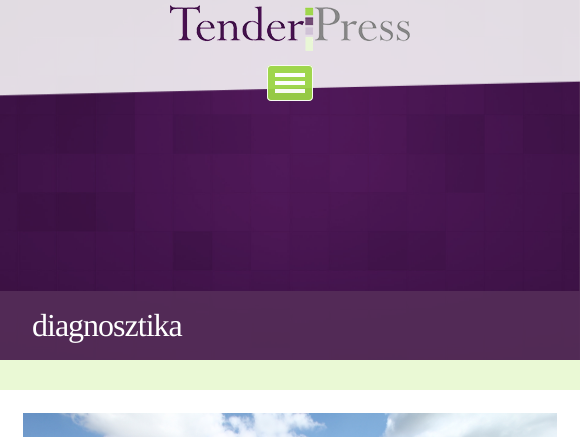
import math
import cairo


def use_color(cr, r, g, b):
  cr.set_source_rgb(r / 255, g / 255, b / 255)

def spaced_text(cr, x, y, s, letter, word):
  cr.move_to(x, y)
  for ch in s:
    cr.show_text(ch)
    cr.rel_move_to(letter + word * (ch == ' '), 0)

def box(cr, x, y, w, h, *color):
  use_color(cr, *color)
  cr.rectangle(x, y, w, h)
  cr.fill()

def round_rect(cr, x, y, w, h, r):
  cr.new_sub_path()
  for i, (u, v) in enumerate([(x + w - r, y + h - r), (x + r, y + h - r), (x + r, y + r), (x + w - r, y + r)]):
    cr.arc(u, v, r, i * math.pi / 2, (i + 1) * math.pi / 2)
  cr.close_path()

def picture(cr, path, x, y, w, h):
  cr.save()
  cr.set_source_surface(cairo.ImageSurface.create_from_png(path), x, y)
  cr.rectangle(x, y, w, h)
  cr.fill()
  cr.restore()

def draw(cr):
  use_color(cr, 234, 249, 213)
  cr.paint()
  picture(cr, "img_03.png", 0, 0, 580, 360)
  picture(cr, "img_01.png", 0, 0, 580, 97)
  picture(cr, "img_02.png", 170, 5, 240, 46)
  cr.set_source_rgba(0.608, 0.839, 0.263, 0.93)
  round_rect(cr, 267, 65, 46, 36, 4)
  cr.fill()
  round_rect(cr, 267.5, 65.5, 45, 35, 3.5)
  cr.set_source_rgba(1, 1, 1, 0.93)
  cr.set_line_width(1)
  cr.stroke()
  box(cr, 275, 73, 30, 4, 253, 253, 253)
  box(cr, 275, 81, 30, 4, 253, 253, 253)
  box(cr, 275, 89, 30, 4, 248, 251, 242)
  cr.set_source_rgba(0.333, 0.18, 0.349, 0.88)
  cr.rectangle(0, 291, 580, 69)
  cr.fill()
  box(cr, 0, 390, 580, 47, 255, 255, 255)
  picture(cr, "img_04.png", 23, 413, 534, 24)
  cr.select_font_face("Liberation Serif")
  cr.set_font_size(32)
  spaced_text(cr, 32, 336, "diagnosztika", -1, 0)


surface = cairo.ImageSurface(cairo.FORMAT_RGB24, 580, 437)
cr = cairo.Context(surface)
options = cairo.FontOptions()
options.set_hint_metrics(cairo.HINT_METRICS_OFF)
options.set_hint_style(cairo.HINT_STYLE_NONE)
cr.set_font_options(options)
cr.set_miter_limit(4)
draw(cr)
surface.write_to_png("out.png")
